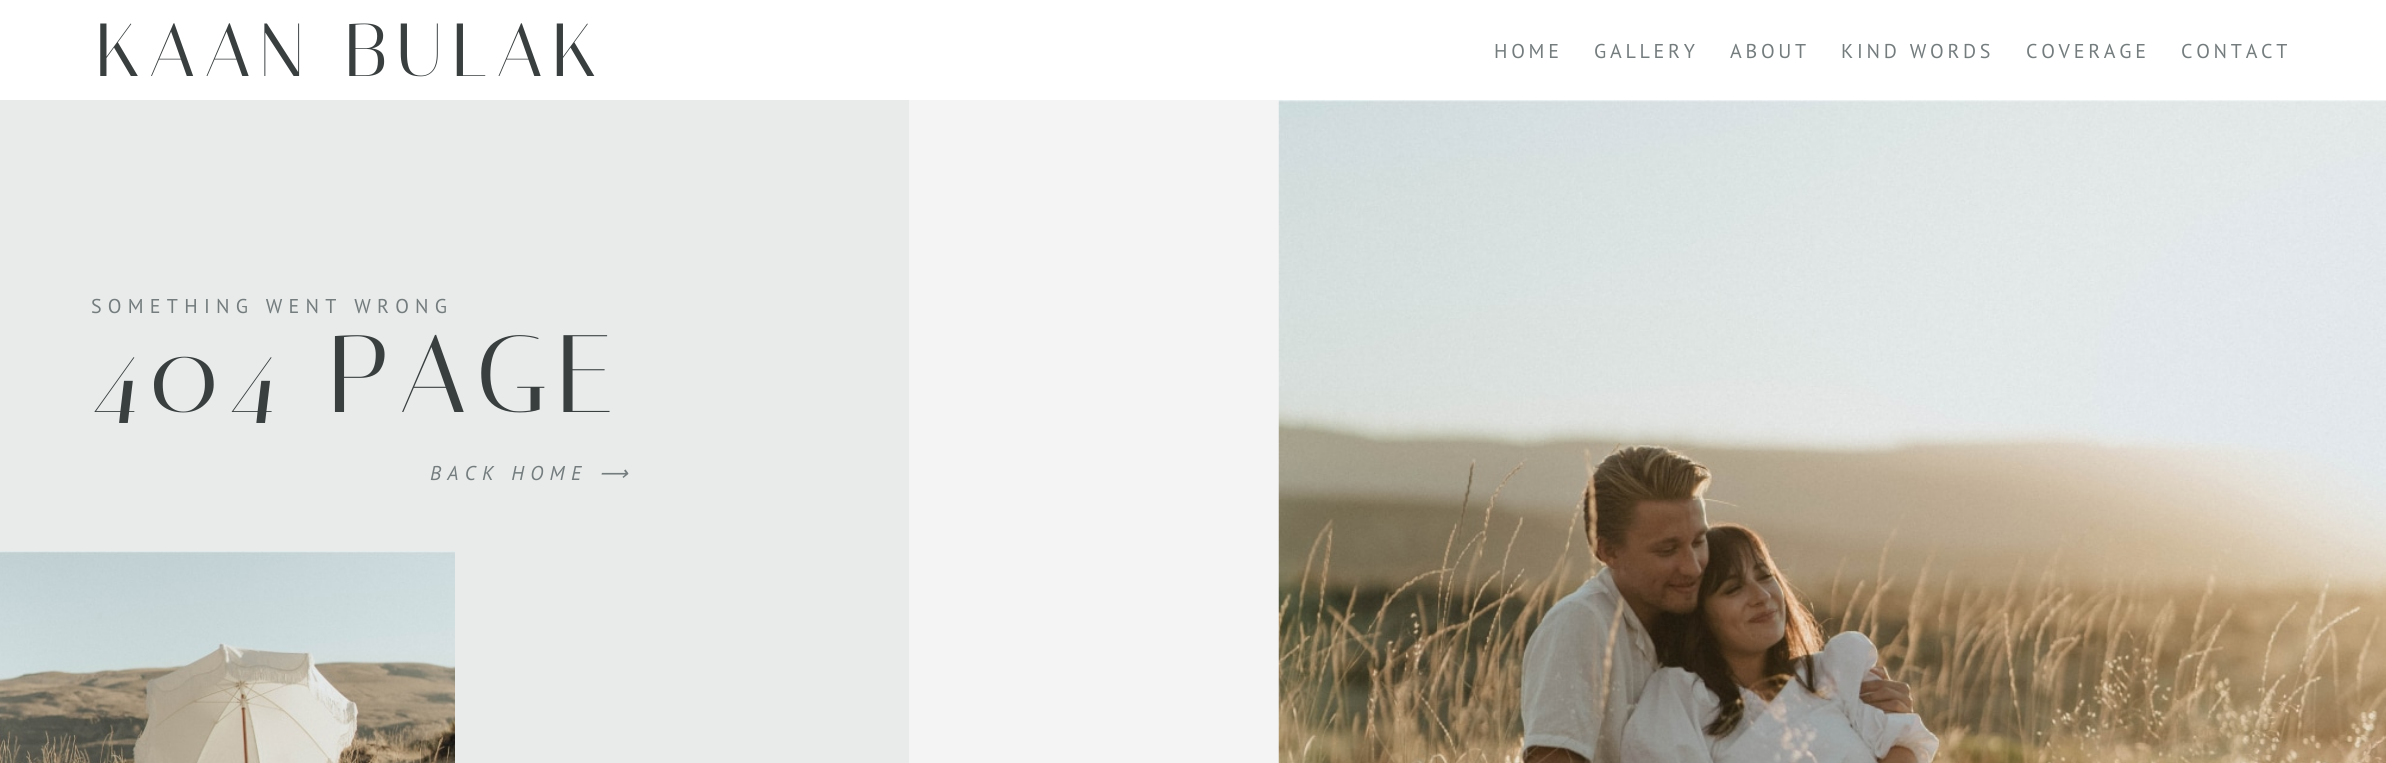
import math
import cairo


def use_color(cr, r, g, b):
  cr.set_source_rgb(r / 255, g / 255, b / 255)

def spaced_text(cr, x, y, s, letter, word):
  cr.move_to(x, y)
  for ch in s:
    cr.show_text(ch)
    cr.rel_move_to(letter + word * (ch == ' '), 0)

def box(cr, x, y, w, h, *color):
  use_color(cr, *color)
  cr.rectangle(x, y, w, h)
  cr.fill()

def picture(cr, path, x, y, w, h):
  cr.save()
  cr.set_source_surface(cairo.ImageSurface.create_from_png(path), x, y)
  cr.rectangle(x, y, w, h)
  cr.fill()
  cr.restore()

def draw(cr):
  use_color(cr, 255, 255, 255)
  cr.paint()
  box(cr, 909, 100, 370, 663, 244, 244, 244)
  box(cr, 0, 100, 909, 663, 232, 235, 234)
  picture(cr, "img_01.png", 0, 551, 455, 212)
  picture(cr, "img_02.png", 1278, 100, 1108, 663)
  cr.select_font_face("Italiana")
  cr.set_font_size(75)
  use_color(cr, 57, 62, 63)
  spaced_text(cr, 95, 76, "KAAN BULAK", 8.75, 0)
  cr.select_font_face("PT Sans")
  cr.set_font_size(20)
  use_color(cr, 116, 124, 125)
  spaced_text(cr, 1494, 58, "HOME", 3.75, 0)
  spaced_text(cr, 1594, 58, "GALLERY", 3.75, 0)
  spaced_text(cr, 1730, 58, "ABOUT", 3.75, 0)
  spaced_text(cr, 1841, 58, "KIND WORDS", 3.75, 0)
  spaced_text(cr, 2026, 58, "COVERAGE", 3.75, 0)
  spaced_text(cr, 2181, 58, "CONTACT", 3.75, 0)
  spaced_text(cr, 91, 313, "SOMETHING WENT WRONG", 6.25, 0)
  cr.select_font_face("Italiana")
  cr.set_font_size(109.75)
  use_color(cr, 57, 62, 63)
  spaced_text(cr, 91, 412, "404 PAGE", 8.75, 0)
  cr.select_font_face("PT Sans", cairo.FONT_SLANT_ITALIC)
  cr.set_font_size(20)
  use_color(cr, 116, 124, 125)
  spaced_text(cr, 430, 480, "BACK HOME", 6.25, 0)
  cr.select_font_face("DejaVu Sans", cairo.FONT_SLANT_ITALIC)
  spaced_text(cr, 599, 480, "⟶", 6.25, 0)


surface = cairo.ImageSurface(cairo.FORMAT_RGB24, 2386, 763)
cr = cairo.Context(surface)
options = cairo.FontOptions()
options.set_hint_metrics(cairo.HINT_METRICS_OFF)
options.set_hint_style(cairo.HINT_STYLE_NONE)
cr.set_font_options(options)
cr.set_miter_limit(4)
draw(cr)
surface.write_to_png("out.png")
